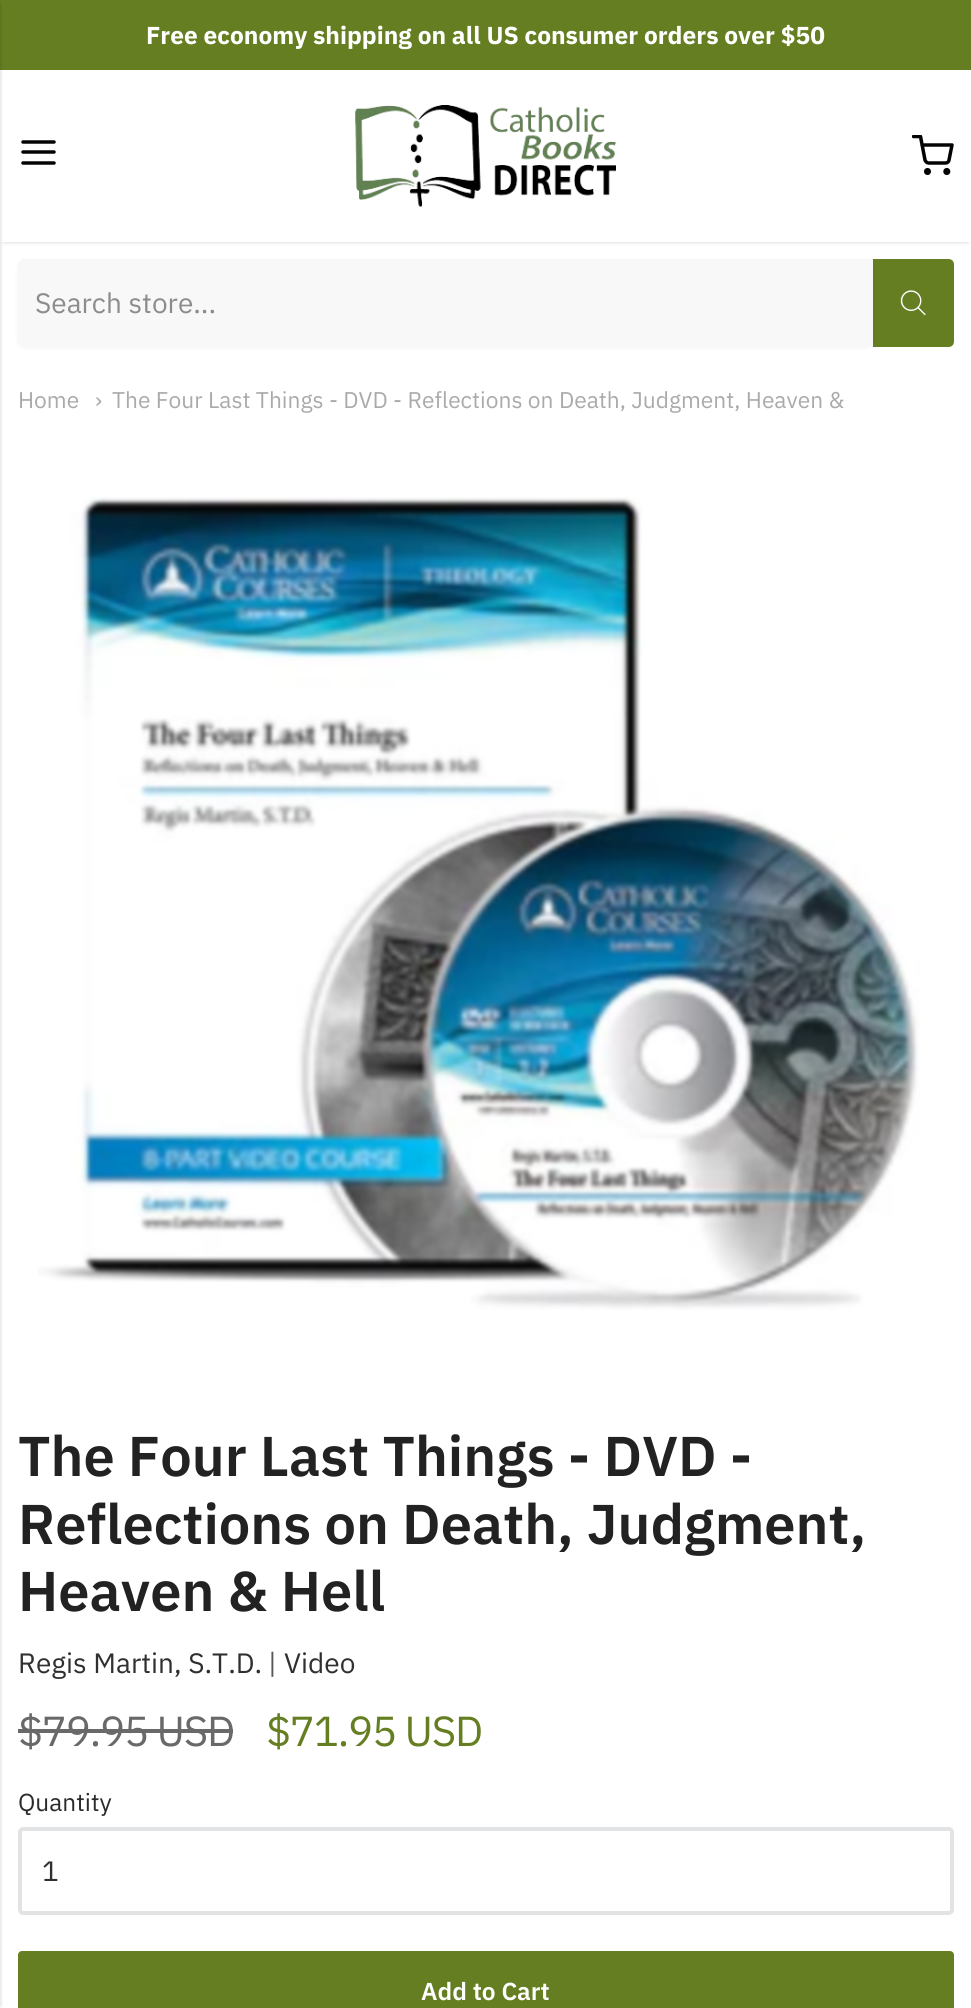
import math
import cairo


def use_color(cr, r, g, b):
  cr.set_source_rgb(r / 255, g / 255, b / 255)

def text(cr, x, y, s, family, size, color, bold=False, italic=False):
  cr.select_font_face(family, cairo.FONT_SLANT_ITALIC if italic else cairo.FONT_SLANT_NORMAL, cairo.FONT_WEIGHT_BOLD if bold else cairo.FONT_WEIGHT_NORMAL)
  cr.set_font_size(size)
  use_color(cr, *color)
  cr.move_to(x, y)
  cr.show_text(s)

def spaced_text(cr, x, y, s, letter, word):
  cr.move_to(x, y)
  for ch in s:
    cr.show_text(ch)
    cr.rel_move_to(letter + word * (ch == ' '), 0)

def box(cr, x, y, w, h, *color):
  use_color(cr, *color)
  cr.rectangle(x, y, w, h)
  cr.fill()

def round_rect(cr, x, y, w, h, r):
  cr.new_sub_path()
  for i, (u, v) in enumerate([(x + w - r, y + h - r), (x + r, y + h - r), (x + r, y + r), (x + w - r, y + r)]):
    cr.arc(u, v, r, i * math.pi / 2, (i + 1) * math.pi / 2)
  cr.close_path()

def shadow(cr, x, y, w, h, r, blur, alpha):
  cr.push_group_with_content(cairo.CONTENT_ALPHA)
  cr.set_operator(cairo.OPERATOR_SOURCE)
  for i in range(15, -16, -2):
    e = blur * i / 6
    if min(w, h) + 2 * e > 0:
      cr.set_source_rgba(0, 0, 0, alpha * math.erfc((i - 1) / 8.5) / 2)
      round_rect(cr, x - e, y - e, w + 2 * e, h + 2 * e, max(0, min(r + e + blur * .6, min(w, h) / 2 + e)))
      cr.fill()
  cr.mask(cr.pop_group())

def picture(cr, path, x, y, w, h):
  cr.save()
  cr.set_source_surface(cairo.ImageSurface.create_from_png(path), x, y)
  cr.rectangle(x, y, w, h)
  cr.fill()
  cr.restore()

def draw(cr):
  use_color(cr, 255, 255, 255)
  cr.paint()
  box(cr, 0, 0, 971, 70, 101, 126, 33)
  use_color(cr, 0, 0, 0)
  shadow(cr, 4, 77, 964, 165, 0, 2, 0.2)
  box(cr, 1, 74, 970, 168, 255, 255, 255)
  use_color(cr, 0, 0, 0)
  shadow(cr, -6, 4, 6, 2002, 0, 2, 0.2)
  cr.new_path()
  cr.move_to(23, 152)
  cr.line_to(54, 152)
  cr.move_to(23, 142)
  cr.line_to(54, 142)
  cr.move_to(23, 163)
  cr.line_to(54, 163)
  use_color(cr, 3, 3, 3)
  cr.set_line_width(3.5)
  cr.set_line_cap(cairo.LINE_CAP_ROUND)
  cr.set_line_join(cairo.LINE_JOIN_ROUND)
  cr.stroke()
  picture(cr, "img_01.png", 355, 105, 261, 102)
  cr.save()
  cr.rectangle(912, 135, 42, 42)
  cr.clip()
  cr.new_path()
  cr.move_to(913.5, 136.5)
  cr.line_to(920.5, 136.5)
  cr.line_to(925, 160)
  cr.curve_to(925.5, 161.5, 927, 163, 928.5, 163)
  cr.line_to(945.5, 163)
  cr.curve_to(947.5, 163, 949, 161.5, 949, 160)
  cr.line_to(952, 145)
  cr.line_to(922, 145)
  cr.stroke()
  cr.restore()
  cr.arc(927.5, 171.5, 1.8, 0, 2 * math.pi)
  cr.set_line_cap(cairo.LINE_CAP_BUTT)
  cr.set_line_join(cairo.LINE_JOIN_MITER)
  cr.stroke()
  cr.arc(946.8, 171.5, 1.8, 0, 2 * math.pi)
  cr.stroke()
  use_color(cr, 101, 126, 33)
  cr.new_path()
  cr.move_to(875, 261)
  cr.line_to(949, 261)
  cr.curve_to(950.5, 261, 952, 262.5, 952, 264)
  cr.line_to(952, 342)
  cr.curve_to(952, 343.5, 950.5, 345, 949, 345)
  cr.line_to(875, 345)
  cr.close_path()
  cr.fill_preserve()
  cr.set_line_width(4)
  cr.stroke()
  use_color(cr, 0, 0, 0)
  shadow(cr, 18, 261, 855, 87, 7, 2, 0.05)
  use_color(cr, 248, 248, 248)
  cr.new_path()
  cr.move_to(25, 259)
  cr.line_to(873, 259)
  cr.line_to(873, 347)
  cr.line_to(25, 347)
  cr.curve_to(21, 347, 18, 344, 18, 340)
  cr.line_to(18, 266)
  cr.curve_to(18, 262, 21, 259, 25, 259)
  cr.close_path()
  cr.fill()
  picture(cr, "img_02.png", 900, 290, 26, 26)
  picture(cr, "img_03.png", 38, 497, 882, 813)
  box(cr, 18, 1729, 215, 4, 105, 105, 105)
  round_rect(cr, 20, 1829, 932, 84, 3)
  use_color(cr, 225, 227, 228)
  cr.stroke()
  use_color(cr, 101, 126, 33)
  round_rect(cr, 20, 1953, 932, 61, 2)
  cr.fill_preserve()
  cr.stroke()
  text(cr, 146, 44, "Free economy shipping on all US consumer orders over $50", "IBM Plex Sans", 24.5, (255, 255, 255), bold=True)
  text(cr, 35, 313, "Search store...", "IBM Plex Sans", 28, (140, 140, 140))
  text(cr, 18, 408, "Home", "IBM Plex Sans", 22.75, (169, 170, 170))
  text(cr, 95, 408, "›", "IBM Plex Sans", 22.75, (169, 170, 170))
  text(cr, 112, 408, "The Four Last Things - DVD - Reflections on Death, Judgment, Heaven &", "IBM Plex Sans", 22.75, (169, 170, 170))
  text(cr, 18, 1476, "The Four Last Things - DVD -", "IBM Plex Sans SemiBold", 56, (34, 34, 34))
  text(cr, 18, 1544, "Reflections on Death, Judgment,", "IBM Plex Sans SemiBold", 56, (34, 34, 34))
  text(cr, 18, 1611, "Heaven & Hell", "IBM Plex Sans SemiBold", 56, (34, 34, 34))
  text(cr, 18, 1673, "Regis Martin, S.T.D.", "IBM Plex Sans", 28, (48, 48, 48))
  text(cr, 268, 1673, "|", "IBM Plex Sans", 28, (88, 88, 88))
  text(cr, 284, 1673, "Video", "IBM Plex Sans", 28, (48, 48, 48))
  cr.set_font_size(42)
  use_color(cr, 105, 105, 105)
  spaced_text(cr, 18, 1746, "$79.95 USD", -1.25, 0)
  use_color(cr, 101, 126, 33)
  spaced_text(cr, 266, 1746, "$71.95 USD", -1.25, 0)
  text(cr, 18, 1811, "Quantity", "IBM Plex Sans", 24.5, (42, 43, 43))
  text(cr, 42, 1881, "1", "IBM Plex Sans", 28, (48, 48, 48))
  text(cr, 421, 2000, "Add to Cart", "IBM Plex Sans SemiBold", 24.5, (255, 255, 255))


surface = cairo.ImageSurface(cairo.FORMAT_RGB24, 971, 2008)
cr = cairo.Context(surface)
options = cairo.FontOptions()
options.set_hint_metrics(cairo.HINT_METRICS_OFF)
options.set_hint_style(cairo.HINT_STYLE_NONE)
cr.set_font_options(options)
cr.set_miter_limit(4)
draw(cr)
surface.write_to_png("out.png")
